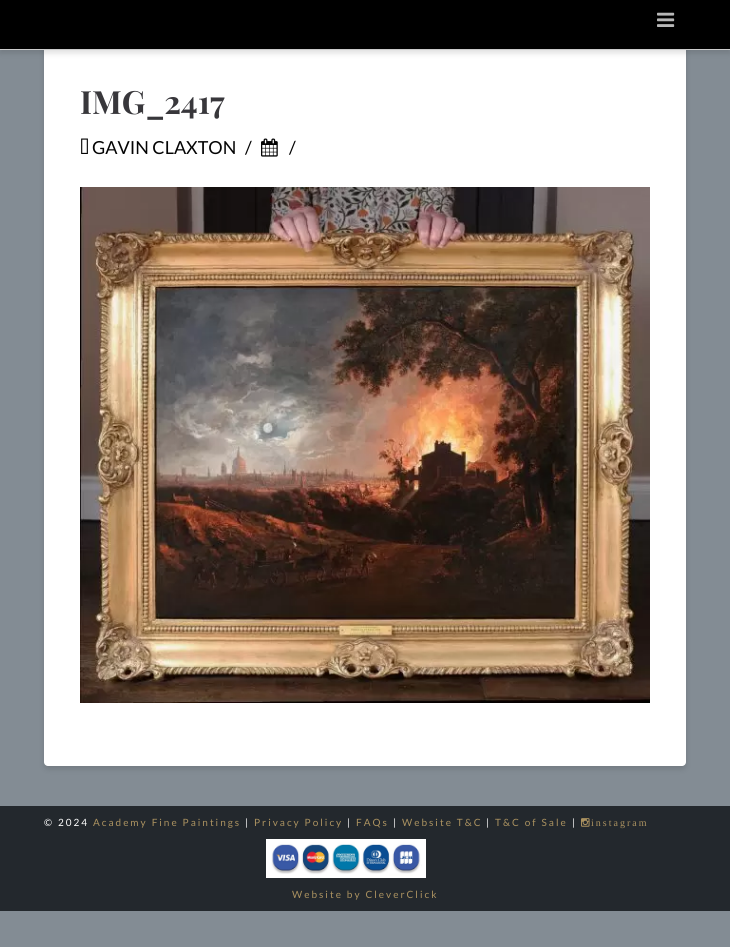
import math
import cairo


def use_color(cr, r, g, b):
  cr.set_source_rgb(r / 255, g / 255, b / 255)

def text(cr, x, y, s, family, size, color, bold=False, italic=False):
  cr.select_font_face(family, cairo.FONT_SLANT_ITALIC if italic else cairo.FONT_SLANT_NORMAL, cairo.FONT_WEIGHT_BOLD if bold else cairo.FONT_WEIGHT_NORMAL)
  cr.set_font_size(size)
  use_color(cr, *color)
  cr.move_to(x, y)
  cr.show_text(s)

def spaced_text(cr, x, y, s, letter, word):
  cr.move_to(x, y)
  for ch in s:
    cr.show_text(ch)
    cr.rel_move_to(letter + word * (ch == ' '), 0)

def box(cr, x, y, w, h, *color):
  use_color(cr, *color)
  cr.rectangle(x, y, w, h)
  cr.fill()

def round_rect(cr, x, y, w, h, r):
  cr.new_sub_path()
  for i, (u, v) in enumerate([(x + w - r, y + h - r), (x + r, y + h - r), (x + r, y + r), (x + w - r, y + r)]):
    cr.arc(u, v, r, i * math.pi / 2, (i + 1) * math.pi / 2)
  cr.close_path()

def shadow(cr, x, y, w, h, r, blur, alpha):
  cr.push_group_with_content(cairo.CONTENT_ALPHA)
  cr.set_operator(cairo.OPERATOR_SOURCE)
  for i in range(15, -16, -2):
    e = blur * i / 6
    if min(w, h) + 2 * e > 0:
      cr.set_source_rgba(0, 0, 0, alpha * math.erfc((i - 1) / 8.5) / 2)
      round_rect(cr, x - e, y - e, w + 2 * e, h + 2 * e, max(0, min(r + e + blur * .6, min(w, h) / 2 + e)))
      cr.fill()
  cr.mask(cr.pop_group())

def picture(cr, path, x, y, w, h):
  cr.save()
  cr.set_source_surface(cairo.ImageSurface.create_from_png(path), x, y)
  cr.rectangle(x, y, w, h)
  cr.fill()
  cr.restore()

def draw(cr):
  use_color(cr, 131, 140, 148)
  cr.paint()
  use_color(cr, 0, 0, 0)
  shadow(cr, 44, 43, 642, 726, 4, 3, 0.13)
  use_color(cr, 255, 255, 255)
  round_rect(cr, 44, 40, 642, 726, 4)
  cr.fill()
  use_color(cr, 0, 0, 0)
  shadow(cr, 0, 3, 730, 50, 0, 3, 0.13)
  box(cr, 0, 0, 730, 49, 0, 0, 0)
  box(cr, 0, 49, 730, 1, 204, 204, 204)
  picture(cr, "img_01.png", 657, 12, 18, 15)
  picture(cr, "img_02.png", 81, 138, 7, 16)
  picture(cr, "img_03.png", 261, 138, 17, 19)
  picture(cr, "img_04.png", 80, 187, 570, 516)
  box(cr, 0, 806, 730, 105, 35, 40, 45)
  picture(cr, "img_05.png", 581, 818, 9, 9)
  picture(cr, "img_06.png", 266, 839, 160, 39)
  text(cr, 80, 114, "IMG_2417", "Playfair Display", 32, (56, 55, 59), bold=True)
  text(cr, 92, 154, "GAVIN CLAXTON", "Lato", 18, (4, 4, 4))
  text(cr, 245, 154, "/", "Lato", 18, (4, 4, 4))
  text(cr, 289, 154, "/", "Lato", 18, (4, 4, 4))
  cr.set_font_size(10)
  use_color(cr, 255, 255, 255)
  spaced_text(cr, 44, 826, "© 2024", 2, 0)
  use_color(cr, 171, 146, 96)
  spaced_text(cr, 93, 826, "Academy Fine Paintings", 2, 0)
  use_color(cr, 255, 255, 255)
  spaced_text(cr, 245, 826, "|", 2, 0)
  use_color(cr, 171, 146, 96)
  spaced_text(cr, 254, 826, "Privacy Policy", 2, 0)
  use_color(cr, 255, 255, 255)
  spaced_text(cr, 347, 826, "|", 2, 0)
  use_color(cr, 171, 146, 96)
  spaced_text(cr, 356, 826, "FAQs", 2, 0)
  use_color(cr, 255, 255, 255)
  spaced_text(cr, 393, 826, "|", 2, 0)
  use_color(cr, 171, 146, 96)
  spaced_text(cr, 402, 826, "Website T&C", 2, 0)
  use_color(cr, 255, 255, 255)
  spaced_text(cr, 486, 826, "|", 2, 0)
  use_color(cr, 171, 146, 96)
  spaced_text(cr, 495, 826, "T&C of Sale", 2, 0)
  use_color(cr, 255, 255, 255)
  spaced_text(cr, 572, 826, "|", 2, 0)
  cr.select_font_face("Liberation Serif")
  use_color(cr, 171, 146, 96)
  spaced_text(cr, 591, 826, "instagram", 2, 0)
  cr.select_font_face("Lato")
  spaced_text(cr, 292, 898, "Website by CleverClick", 2, 0)


surface = cairo.ImageSurface(cairo.FORMAT_RGB24, 730, 947)
cr = cairo.Context(surface)
options = cairo.FontOptions()
options.set_hint_metrics(cairo.HINT_METRICS_OFF)
options.set_hint_style(cairo.HINT_STYLE_NONE)
cr.set_font_options(options)
cr.set_miter_limit(4)
draw(cr)
surface.write_to_png("out.png")
